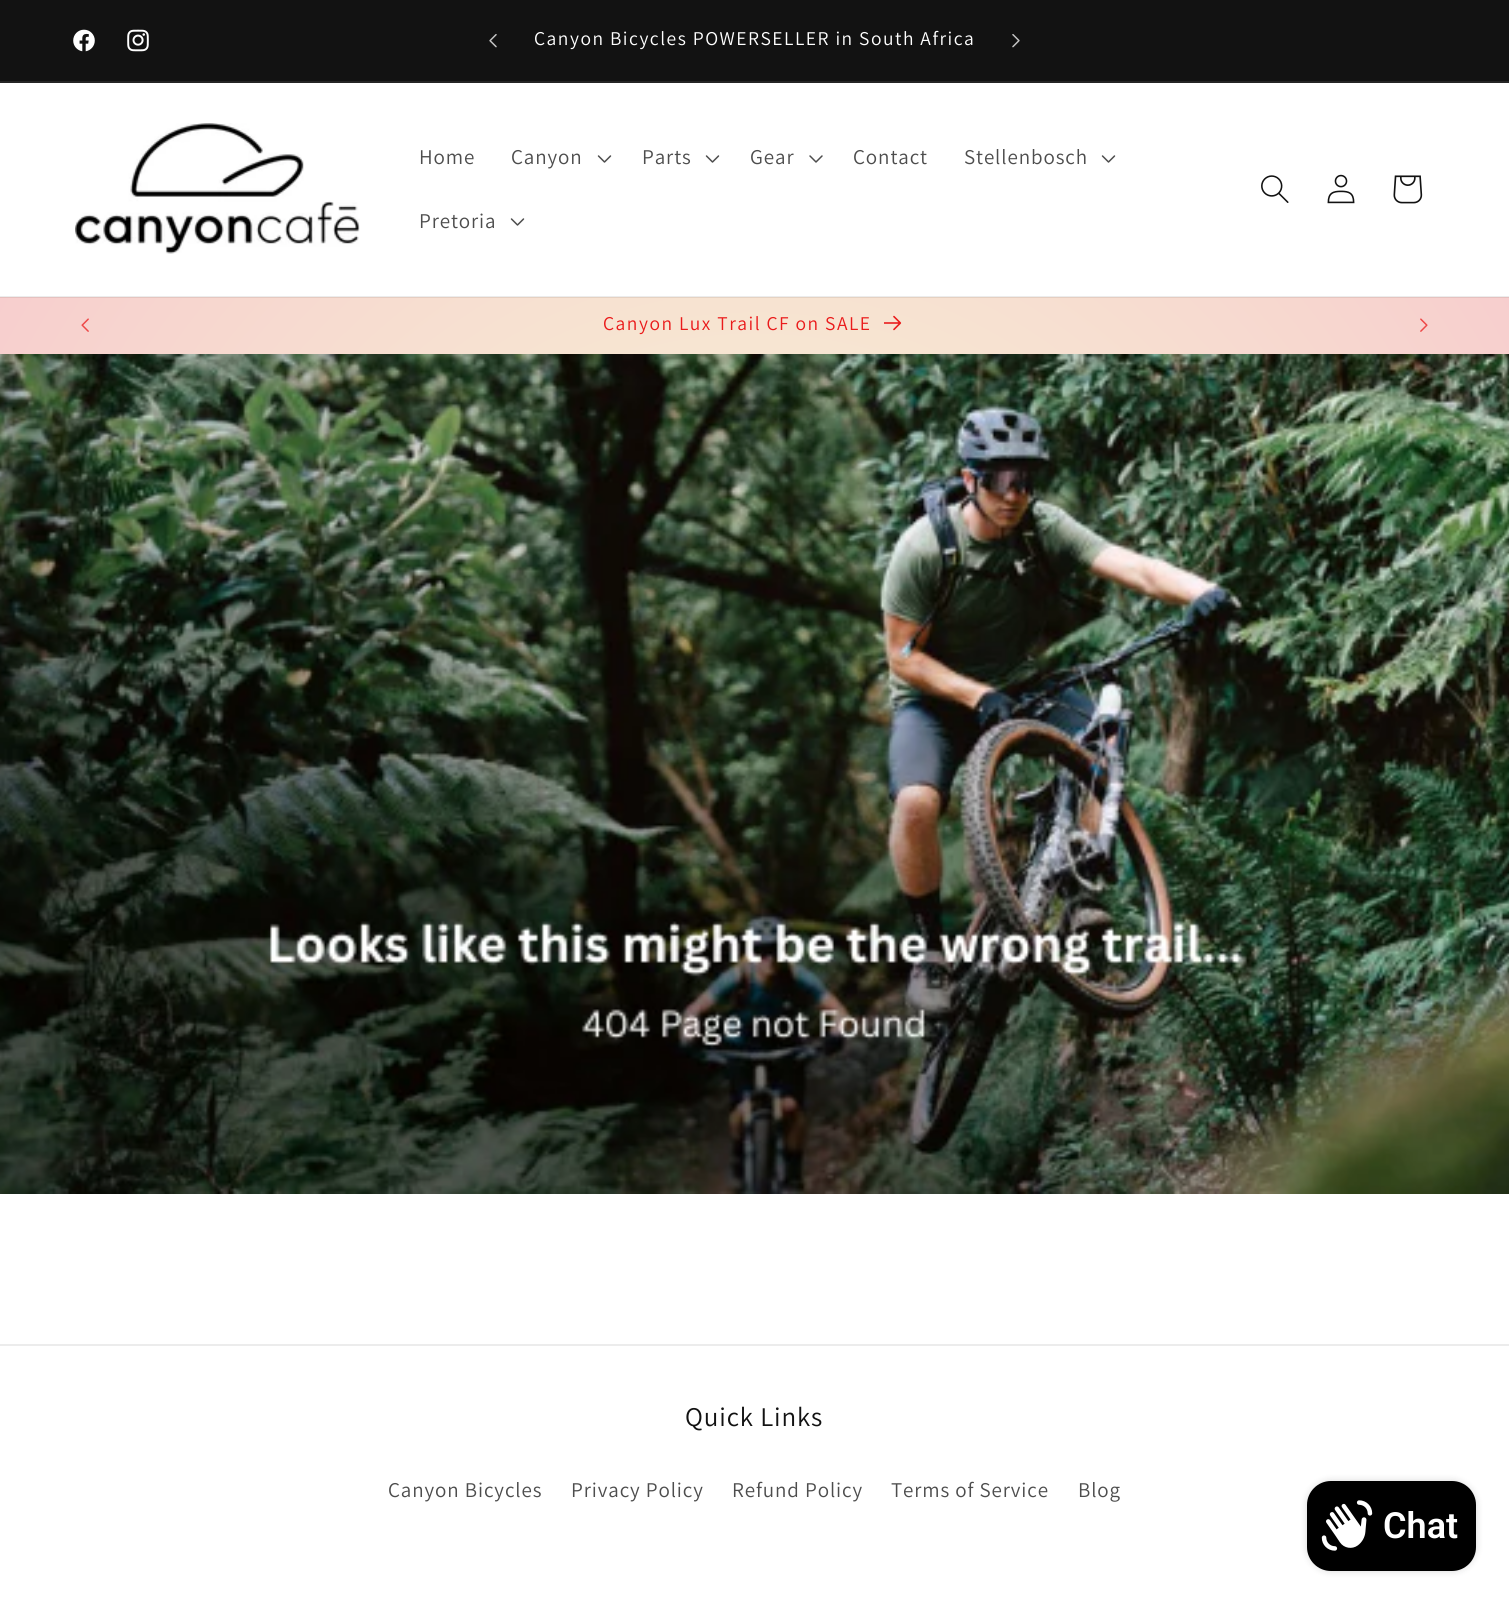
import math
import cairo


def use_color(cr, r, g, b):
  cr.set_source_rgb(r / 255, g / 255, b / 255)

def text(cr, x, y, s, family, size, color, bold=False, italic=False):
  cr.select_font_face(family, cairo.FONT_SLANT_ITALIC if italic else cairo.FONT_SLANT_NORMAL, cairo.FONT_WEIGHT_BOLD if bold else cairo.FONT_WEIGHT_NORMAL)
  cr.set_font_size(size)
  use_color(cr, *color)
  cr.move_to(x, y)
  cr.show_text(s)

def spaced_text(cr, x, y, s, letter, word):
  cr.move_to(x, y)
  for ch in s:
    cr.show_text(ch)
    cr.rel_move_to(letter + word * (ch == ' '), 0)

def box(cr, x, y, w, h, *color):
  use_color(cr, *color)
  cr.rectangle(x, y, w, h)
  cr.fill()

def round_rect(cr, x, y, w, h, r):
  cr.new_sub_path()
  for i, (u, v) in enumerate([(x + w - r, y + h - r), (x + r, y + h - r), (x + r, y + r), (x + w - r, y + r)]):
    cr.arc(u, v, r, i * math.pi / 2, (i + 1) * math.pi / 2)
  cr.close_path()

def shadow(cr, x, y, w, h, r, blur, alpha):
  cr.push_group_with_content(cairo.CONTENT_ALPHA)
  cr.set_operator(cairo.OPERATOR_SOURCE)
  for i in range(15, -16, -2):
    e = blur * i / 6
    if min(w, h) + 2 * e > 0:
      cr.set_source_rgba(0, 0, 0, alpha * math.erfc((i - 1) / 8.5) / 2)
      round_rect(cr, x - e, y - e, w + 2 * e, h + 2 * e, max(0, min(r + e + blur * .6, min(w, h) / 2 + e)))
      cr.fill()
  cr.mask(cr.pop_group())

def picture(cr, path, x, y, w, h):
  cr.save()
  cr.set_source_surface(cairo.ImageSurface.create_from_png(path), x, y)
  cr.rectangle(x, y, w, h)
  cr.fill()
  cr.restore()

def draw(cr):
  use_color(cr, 255, 255, 255)
  cr.paint()
  box(cr, 0, 296, 1509, 1, 236, 236, 236)
  box(cr, 0, 0, 1509, 81, 18, 18, 18)
  box(cr, 0, 81, 1509, 2, 37, 37, 37)
  picture(cr, "img_01.png", 73, 29, 22, 23)
  picture(cr, "img_02.png", 127, 29, 22, 23)
  picture(cr, "img_03.png", 489, 34, 8, 14)
  picture(cr, "img_04.png", 1012, 34, 8, 14)
  picture(cr, "img_05.png", 75, 123, 285, 131)
  picture(cr, "img_06.png", 597, 155, 15, 8)
  picture(cr, "img_06.png", 705, 155, 15, 8)
  picture(cr, "img_07.png", 809, 155, 14, 8)
  picture(cr, "img_06.png", 1101, 155, 15, 8)
  picture(cr, "img_06.png", 510, 218, 15, 8)
  picture(cr, "img_08.png", 1261, 175, 28, 28)
  picture(cr, "img_09.png", 1327, 174, 28, 30)
  picture(cr, "img_10.png", 1393, 175, 30, 29)
  gradient = cairo.RadialGradient(0, 0, 0, 0, 0, 1)
  gradient.set_matrix(cairo.Matrix(1 / 1067, 0, 0, 1 / 1133, -1 * 755 / 1067, -1 * 801 / 1133))
  gradient.add_color_stop_rgba(0.16, 0.969, 0.949, 0.831, 1)
  gradient.add_color_stop_rgba(1, 0.969, 0.773, 0.8, 1)
  gradient.add_color_stop_rgba(1, 0.843, 0.8, 0.98, 1)
  cr.set_source(gradient)
  cr.rectangle(0, 298, 1509, 56)
  cr.fill()
  gradient = cairo.RadialGradient(0, 0, 0, 0, 0, 1)
  gradient.set_matrix(cairo.Matrix(1 / 1067, 0, 0, 1 / 1133, -1 * 755 / 1067, -1 * 801 / 1133))
  gradient.add_color_stop_rgba(0.16, 0.898, 0.878, 0.769, 1)
  gradient.add_color_stop_rgba(1, 0.898, 0.718, 0.741, 1)
  gradient.add_color_stop_rgba(1, 0.78, 0.741, 0.906, 1)
  cr.set_source(gradient)
  cr.rectangle(0, 297, 1509, 1)
  cr.fill()
  picture(cr, "img_11.png", 81, 318, 8, 14)
  picture(cr, "img_12.png", 884, 315, 18, 16)
  picture(cr, "img_13.png", 1420, 318, 8, 14)
  picture(cr, "img_14.png", 0, 354, 1509, 840)
  box(cr, 0, 1344, 1509, 2, 236, 236, 236)
  use_color(cr, 0, 0, 0)
  shadow(cr, 1307, 1481, 169, 90, 24, 4, 0.15)
  use_color(cr, 0, 0, 0)
  round_rect(cr, 1307, 1481, 169, 90, 24)
  cr.fill()
  picture(cr, "img_15.png", 1321, 1500, 52, 51)
  cr.select_font_face("Assistant")
  cr.set_font_size(19.5)
  use_color(cr, 255, 255, 255)
  spaced_text(cr, 534, 45, "Canyon Bicycles POWERSELLER in South Africa", 1.5, 0)
  cr.set_font_size(21)
  use_color(cr, 77, 77, 77)
  spaced_text(cr, 419, 164, "Home", 0.9, 0)
  spaced_text(cr, 511, 164, "Canyon", 0.9, 0)
  spaced_text(cr, 642, 164, "Parts", 0.9, 0)
  spaced_text(cr, 750, 164, "Gear", 0.9, 0)
  spaced_text(cr, 853, 164, "Contact", 0.9, 0)
  spaced_text(cr, 964, 164, "Stellenbosch", 0.9, 0)
  spaced_text(cr, 419, 228, "Pretoria", 0.9, 0)
  cr.set_font_size(19.5)
  use_color(cr, 234, 27, 27)
  spaced_text(cr, 603, 330, "Canyon Lux Trail CF on SALE", 1.5, 0)
  cr.set_font_size(27)
  use_color(cr, 18, 18, 18)
  spaced_text(cr, 685, 1426, "Quick Links", 0.9, 0)
  cr.set_font_size(21)
  use_color(cr, 77, 77, 77)
  spaced_text(cr, 388, 1497, "Canyon Bicycles", 0.9, 0)
  spaced_text(cr, 571, 1497, "Privacy Policy", 0.9, 0)
  spaced_text(cr, 732, 1497, "Refund Policy", 0.9, 0)
  spaced_text(cr, 891, 1497, "Terms of Service", 0.9, 0)
  spaced_text(cr, 1078, 1497, "Blog", 0.9, 0)
  text(cr, 1383, 1538, "Chat", "Roboto SemiBold", 36, (255, 255, 255))


surface = cairo.ImageSurface(cairo.FORMAT_RGB24, 1509, 1602)
cr = cairo.Context(surface)
options = cairo.FontOptions()
options.set_hint_metrics(cairo.HINT_METRICS_OFF)
options.set_hint_style(cairo.HINT_STYLE_NONE)
cr.set_font_options(options)
cr.set_miter_limit(4)
draw(cr)
surface.write_to_png("out.png")
